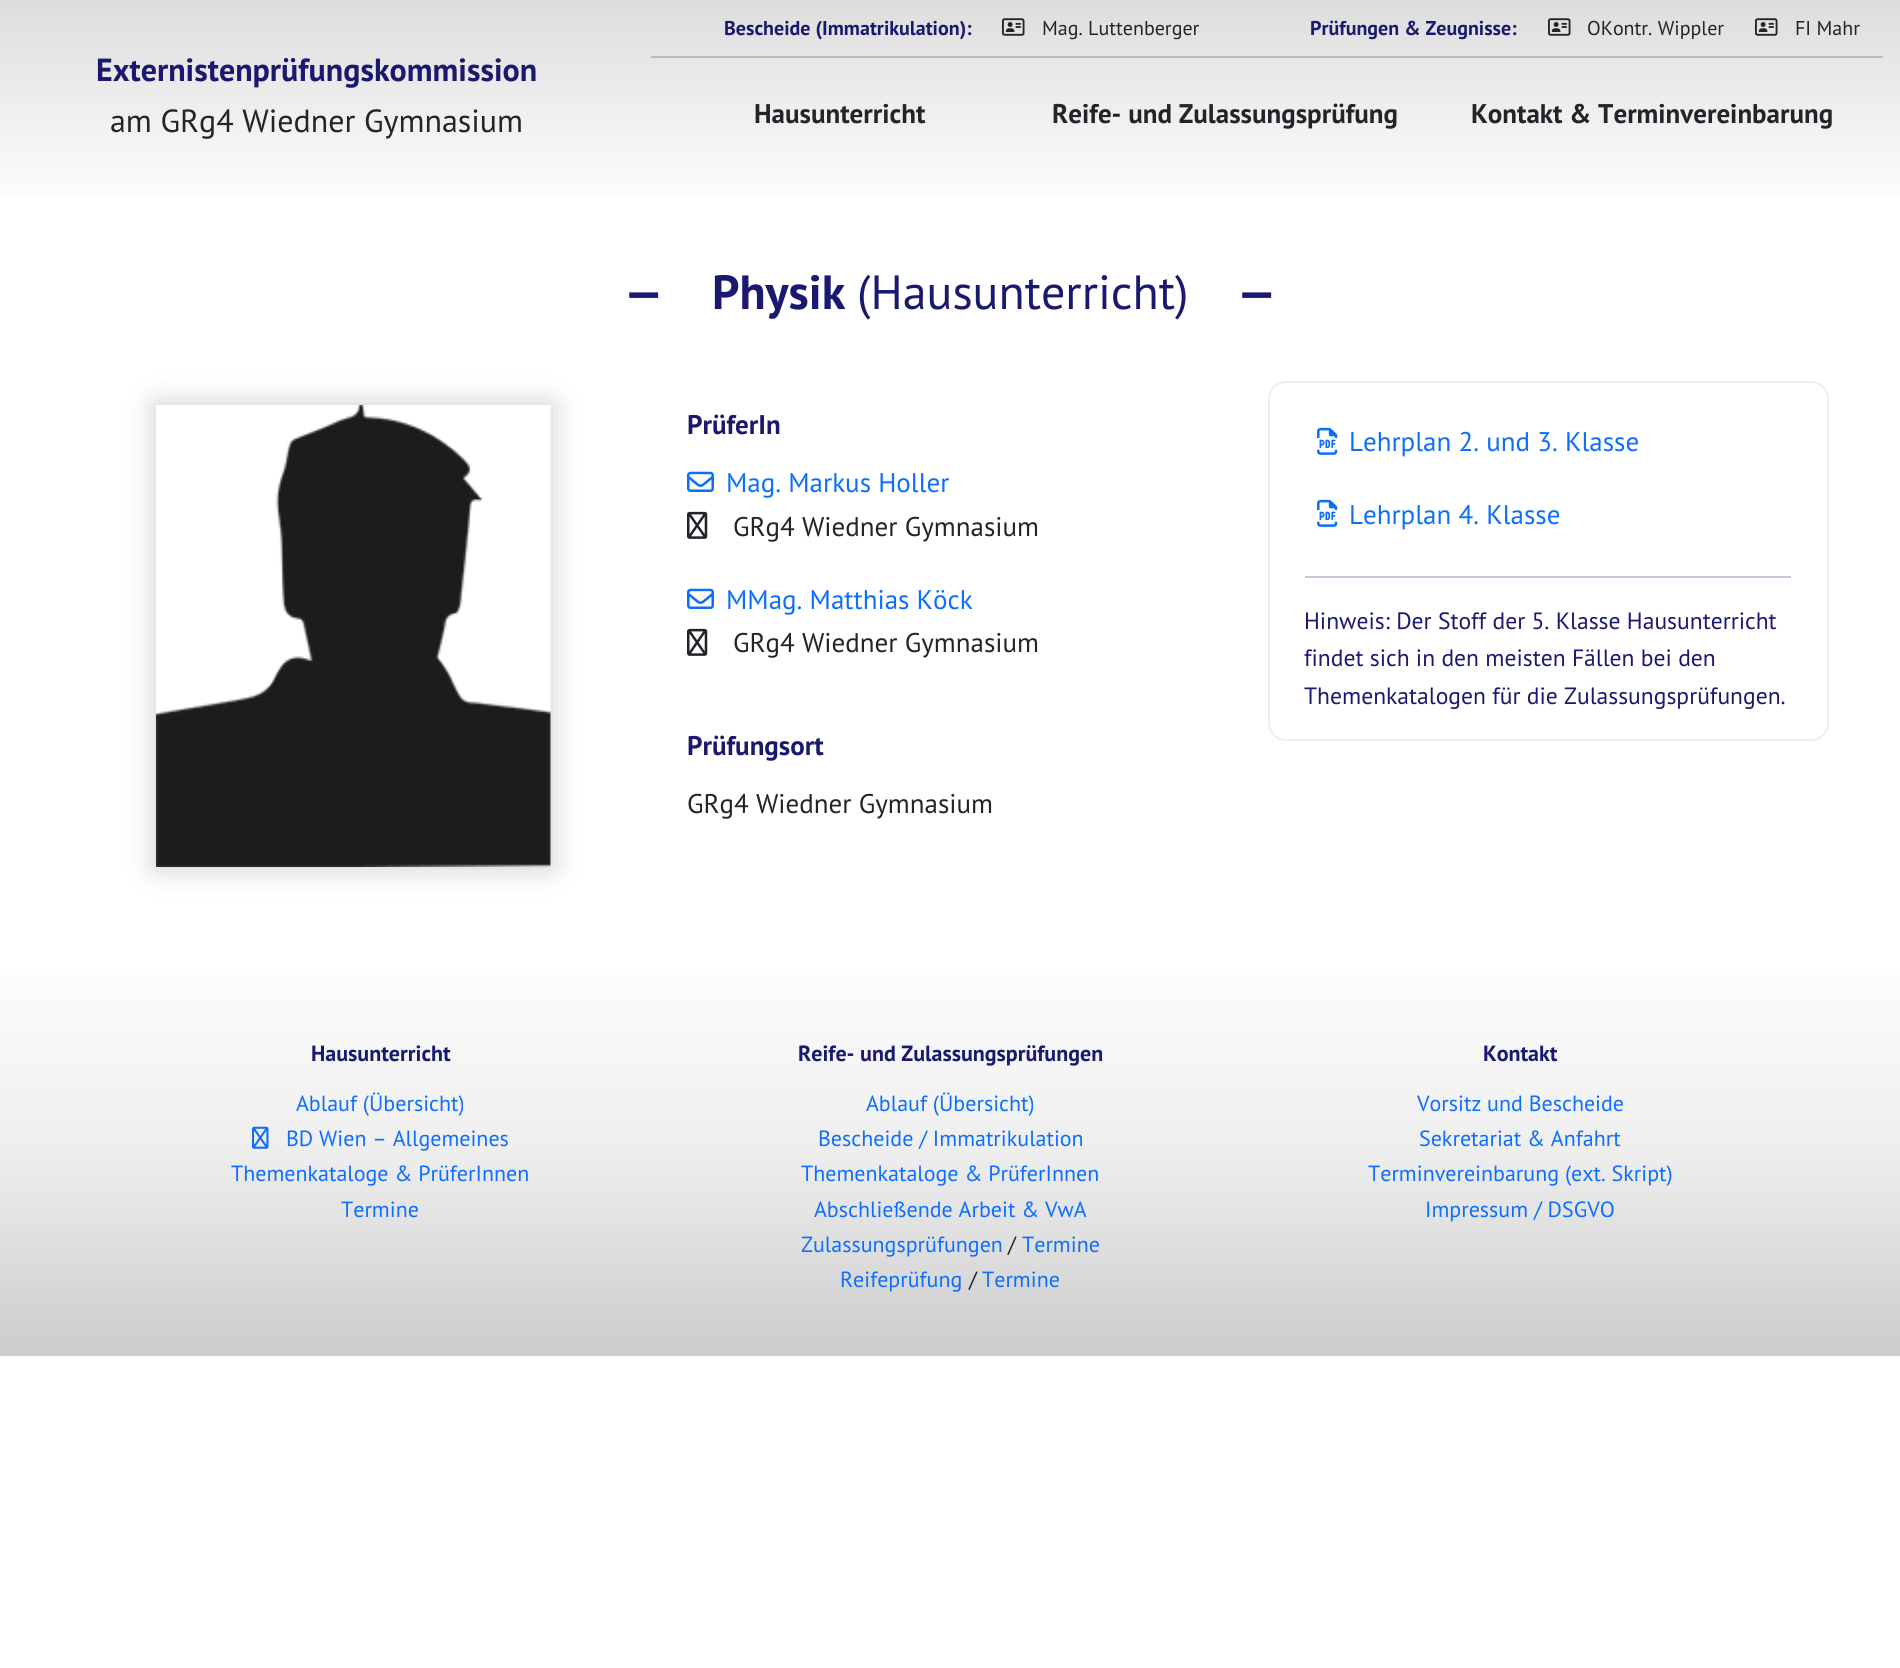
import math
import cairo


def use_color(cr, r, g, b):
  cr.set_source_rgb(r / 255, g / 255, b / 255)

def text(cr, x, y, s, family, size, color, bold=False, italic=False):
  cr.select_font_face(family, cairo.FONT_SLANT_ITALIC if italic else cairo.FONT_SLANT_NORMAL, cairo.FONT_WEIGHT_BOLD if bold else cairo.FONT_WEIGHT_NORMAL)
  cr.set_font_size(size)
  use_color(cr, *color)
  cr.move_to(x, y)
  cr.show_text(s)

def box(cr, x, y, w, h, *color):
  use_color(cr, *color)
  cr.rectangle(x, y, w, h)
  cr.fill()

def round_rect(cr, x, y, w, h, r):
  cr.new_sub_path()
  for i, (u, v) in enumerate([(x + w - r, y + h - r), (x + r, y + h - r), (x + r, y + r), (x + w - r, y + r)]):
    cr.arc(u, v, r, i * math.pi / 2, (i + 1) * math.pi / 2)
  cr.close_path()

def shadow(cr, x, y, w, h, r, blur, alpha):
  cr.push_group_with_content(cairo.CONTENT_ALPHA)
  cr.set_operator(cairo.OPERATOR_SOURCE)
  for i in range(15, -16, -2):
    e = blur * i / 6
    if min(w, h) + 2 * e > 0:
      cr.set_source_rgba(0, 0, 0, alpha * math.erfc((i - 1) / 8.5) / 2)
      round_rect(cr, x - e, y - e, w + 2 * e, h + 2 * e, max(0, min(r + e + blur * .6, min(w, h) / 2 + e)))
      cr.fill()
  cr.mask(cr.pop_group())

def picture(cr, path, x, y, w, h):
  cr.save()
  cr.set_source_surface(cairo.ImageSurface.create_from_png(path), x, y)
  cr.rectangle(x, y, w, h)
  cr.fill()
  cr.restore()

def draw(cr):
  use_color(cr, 255, 255, 255)
  cr.paint()
  gradient = cairo.LinearGradient(950, 0, 950, 212)
  gradient.add_color_stop_rgba(0, 0.867, 0.867, 0.867, 1)
  gradient.add_color_stop_rgba(0.5, 0.933, 0.933, 0.933, 1)
  gradient.add_color_stop_rgba(1, 1, 1, 1, 1)
  cr.set_source(gradient)
  cr.rectangle(0, 0, 1900, 196)
  cr.fill()
  box(cr, 651, 56, 1232, 2, 187, 187, 187)
  picture(cr, "img_01.png", 1002, 18, 23, 18)
  picture(cr, "img_01.png", 1548, 18, 23, 18)
  picture(cr, "img_01.png", 1755, 18, 23, 18)
  use_color(cr, 204, 204, 204)
  shadow(cr, 156, 405, 395, 462, 0, 15, 1)
  picture(cr, "img_02.png", 156, 405, 395, 462)
  picture(cr, "img_03.png", 687, 471, 27, 21)
  picture(cr, "img_04.png", 687, 511, 21, 28)
  picture(cr, "img_03.png", 687, 588, 27, 21)
  picture(cr, "img_04.png", 687, 628, 21, 28)
  round_rect(cr, 1269, 382, 559, 358, 17)
  use_color(cr, 238, 238, 238)
  cr.stroke()
  picture(cr, "img_05.png", 1317, 427, 21, 28)
  picture(cr, "img_05.png", 1317, 499, 21, 28)
  box(cr, 1305, 576, 486, 2, 198, 198, 219)
  gradient = cairo.LinearGradient(950, 945, 950, 1356)
  gradient.add_color_stop_rgba(0, 1, 1, 1, 1)
  gradient.add_color_stop_rgba(0.5, 0.933, 0.933, 0.933, 1)
  gradient.add_color_stop_rgba(1, 0.8, 0.8, 0.8, 1)
  cr.set_source(gradient)
  cr.rectangle(0, 975, 1900, 381)
  cr.fill()
  picture(cr, "img_06.png", 252, 1126, 17, 23)
  text(cr, 96, 81, "Externistenprüfungskommission", "PT Sans", 32, (25, 25, 112), bold=True)
  text(cr, 110, 132, "am GRg4 Wiedner Gymnasium", "PT Sans", 32, (33, 37, 41))
  text(cr, 724, 35, "Bescheide (Immatrikulation):", "PT Sans", 20, (25, 25, 112), bold=True)
  text(cr, 1042, 35, "Mag. Luttenberger", "PT Sans", 20, (33, 37, 41))
  text(cr, 1310, 35, "Prüfungen & Zeugnisse:", "PT Sans", 20, (25, 25, 112), bold=True)
  text(cr, 1587, 35, "OKontr. Wippler", "PT Sans", 20, (33, 37, 41))
  text(cr, 1795, 35, "FI Mahr", "PT Sans", 20, (33, 37, 41))
  text(cr, 754, 123, "Hausunterricht", "PT Sans", 27, (33, 37, 41), bold=True)
  text(cr, 1052, 123, "Reife- und Zulassungsprüfung", "PT Sans", 27, (33, 37, 41), bold=True)
  text(cr, 1471, 123, "Kontakt & Terminvereinbarung", "PT Sans", 27, (33, 37, 41), bold=True)
  text(cr, 624, 309, "—", "PT Sans", 48, (25, 25, 112), bold=True)
  text(cr, 712, 309, "Physik", "PT Sans", 48, (25, 25, 112), bold=True)
  text(cr, 857, 309, "(Hausunterricht)", "PT Sans", 48, (25, 25, 112))
  text(cr, 1237, 309, "—", "PT Sans", 48, (25, 25, 112), bold=True)
  text(cr, 687, 434, "PrüferIn", "PT Sans", 27, (25, 25, 112), bold=True)
  text(cr, 726, 492, "Mag. Markus Holler", "PT Sans", 27, (13, 110, 253))
  text(cr, 733, 536, "GRg4 Wiedner Gymnasium", "PT Sans", 27, (33, 37, 41))
  text(cr, 726, 609, "MMag. Matthias Köck", "PT Sans", 27, (13, 110, 253))
  text(cr, 733, 652, "GRg4 Wiedner Gymnasium", "PT Sans", 27, (33, 37, 41))
  text(cr, 687, 755, "Prüfungsort", "PT Sans", 27, (25, 25, 112), bold=True)
  text(cr, 687, 813, "GRg4 Wiedner Gymnasium", "PT Sans", 27, (33, 37, 41))
  text(cr, 1349, 451, "Lehrplan 2. und 3. Klasse", "PT Sans", 27, (13, 110, 253))
  text(cr, 1349, 524, "Lehrplan 4. Klasse", "PT Sans", 27, (13, 110, 253))
  text(cr, 1304, 629, "Hinweis: Der Stoff der 5. Klasse Hausunterricht", "PT Sans", 23.6, (25, 25, 112))
  text(cr, 1304, 666, "findet sich in den meisten Fällen bei den", "PT Sans", 23.6, (25, 25, 112))
  text(cr, 1304, 704, "Themenkatalogen für die Zulassungsprüfungen.", "PT Sans", 23.6, (25, 25, 112))
  text(cr, 311, 1061, "Hausunterricht", "PT Sans", 22, (25, 25, 112), bold=True)
  text(cr, 296, 1111, "Ablauf (Übersicht)", "PT Sans", 22, (13, 110, 253))
  text(cr, 286, 1146, "BD Wien – Allgemeines", "PT Sans", 22, (13, 110, 253))
  text(cr, 231, 1181, "Themenkataloge & PrüferInnen", "PT Sans", 22, (13, 110, 253))
  text(cr, 341, 1217, "Termine", "PT Sans", 22, (13, 110, 253))
  text(cr, 798, 1061, "Reife- und Zulassungsprüfungen", "PT Sans", 22, (25, 25, 112), bold=True)
  text(cr, 866, 1111, "Ablauf (Übersicht)", "PT Sans", 22, (13, 110, 253))
  text(cr, 818, 1146, "Bescheide / Immatrikulation", "PT Sans", 22, (13, 110, 253))
  text(cr, 801, 1181, "Themenkataloge & PrüferInnen", "PT Sans", 22, (13, 110, 253))
  text(cr, 814, 1217, "Abschließende Arbeit & VwA", "PT Sans", 22, (13, 110, 253))
  text(cr, 801, 1252, "Zulassungsprüfungen", "PT Sans", 22, (13, 110, 253))
  text(cr, 1008, 1252, "/", "PT Sans", 22, (33, 37, 41))
  text(cr, 1022, 1252, "Termine", "PT Sans", 22, (13, 110, 253))
  text(cr, 840, 1287, "Reifeprüfung", "PT Sans", 22, (13, 110, 253))
  text(cr, 969, 1287, "/", "PT Sans", 22, (33, 37, 41))
  text(cr, 982, 1287, "Termine", "PT Sans", 22, (13, 110, 253))
  text(cr, 1483, 1061, "Kontakt", "PT Sans", 22, (25, 25, 112), bold=True)
  text(cr, 1417, 1111, "Vorsitz und Bescheide", "PT Sans", 22, (13, 110, 253))
  text(cr, 1419, 1146, "Sekretariat & Anfahrt", "PT Sans", 22, (13, 110, 253))
  text(cr, 1368, 1181, "Terminvereinbarung (ext. Skript)", "PT Sans", 22, (13, 110, 253))
  text(cr, 1425, 1217, "Impressum / DSGVO", "PT Sans", 22, (13, 110, 253))


surface = cairo.ImageSurface(cairo.FORMAT_RGB24, 1900, 1668)
cr = cairo.Context(surface)
options = cairo.FontOptions()
options.set_hint_metrics(cairo.HINT_METRICS_OFF)
options.set_hint_style(cairo.HINT_STYLE_NONE)
cr.set_font_options(options)
cr.set_miter_limit(4)
draw(cr)
surface.write_to_png("out.png")
